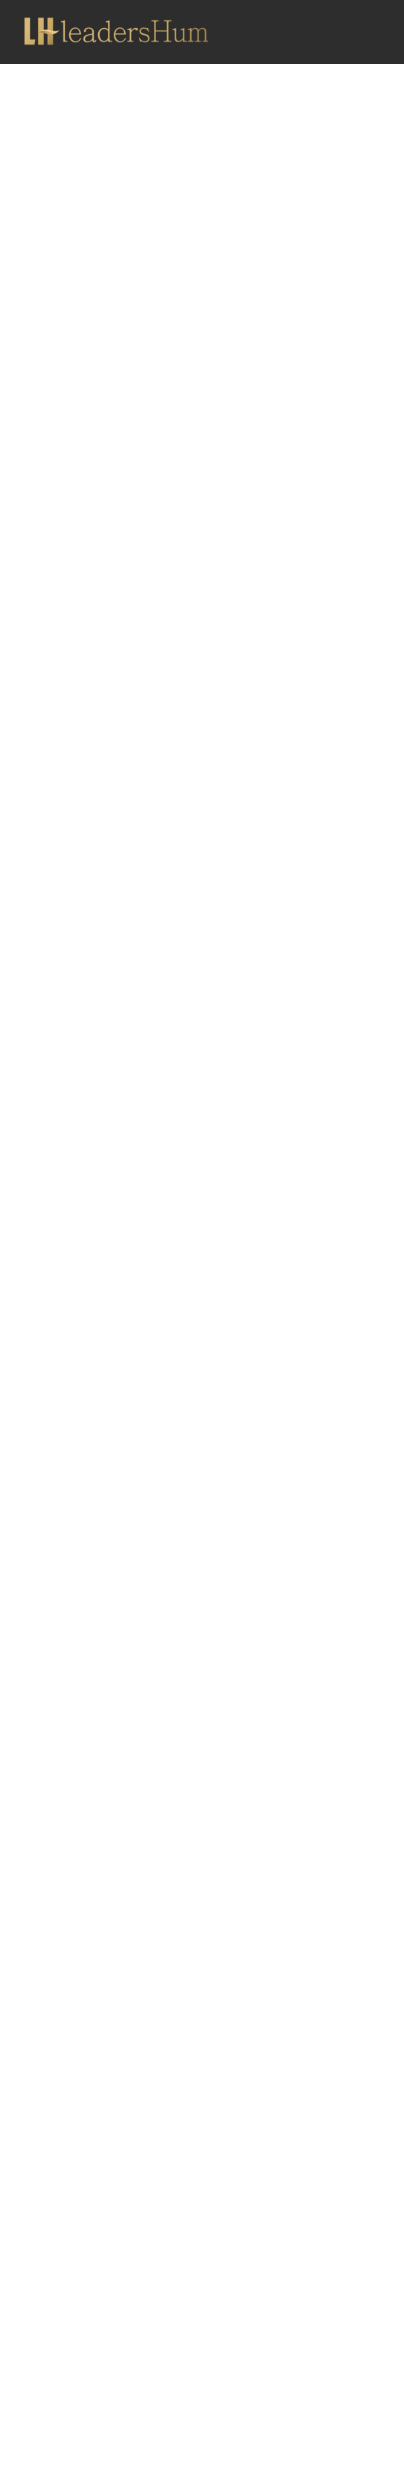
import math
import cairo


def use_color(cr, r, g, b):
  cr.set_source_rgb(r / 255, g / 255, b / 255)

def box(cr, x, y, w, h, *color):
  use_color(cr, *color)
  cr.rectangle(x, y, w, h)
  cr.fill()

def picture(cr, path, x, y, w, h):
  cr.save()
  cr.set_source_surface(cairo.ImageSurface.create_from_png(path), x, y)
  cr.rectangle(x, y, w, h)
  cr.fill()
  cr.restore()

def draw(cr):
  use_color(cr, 255, 255, 255)
  cr.paint()
  box(cr, 0, 0, 404, 64, 45, 45, 45)
  picture(cr, "img_01.png", 24, 17, 184, 29)


surface = cairo.ImageSurface(cairo.FORMAT_RGB24, 404, 2481)
cr = cairo.Context(surface)
options = cairo.FontOptions()
options.set_hint_metrics(cairo.HINT_METRICS_OFF)
options.set_hint_style(cairo.HINT_STYLE_NONE)
cr.set_font_options(options)
cr.set_miter_limit(4)
draw(cr)
surface.write_to_png("out.png")
